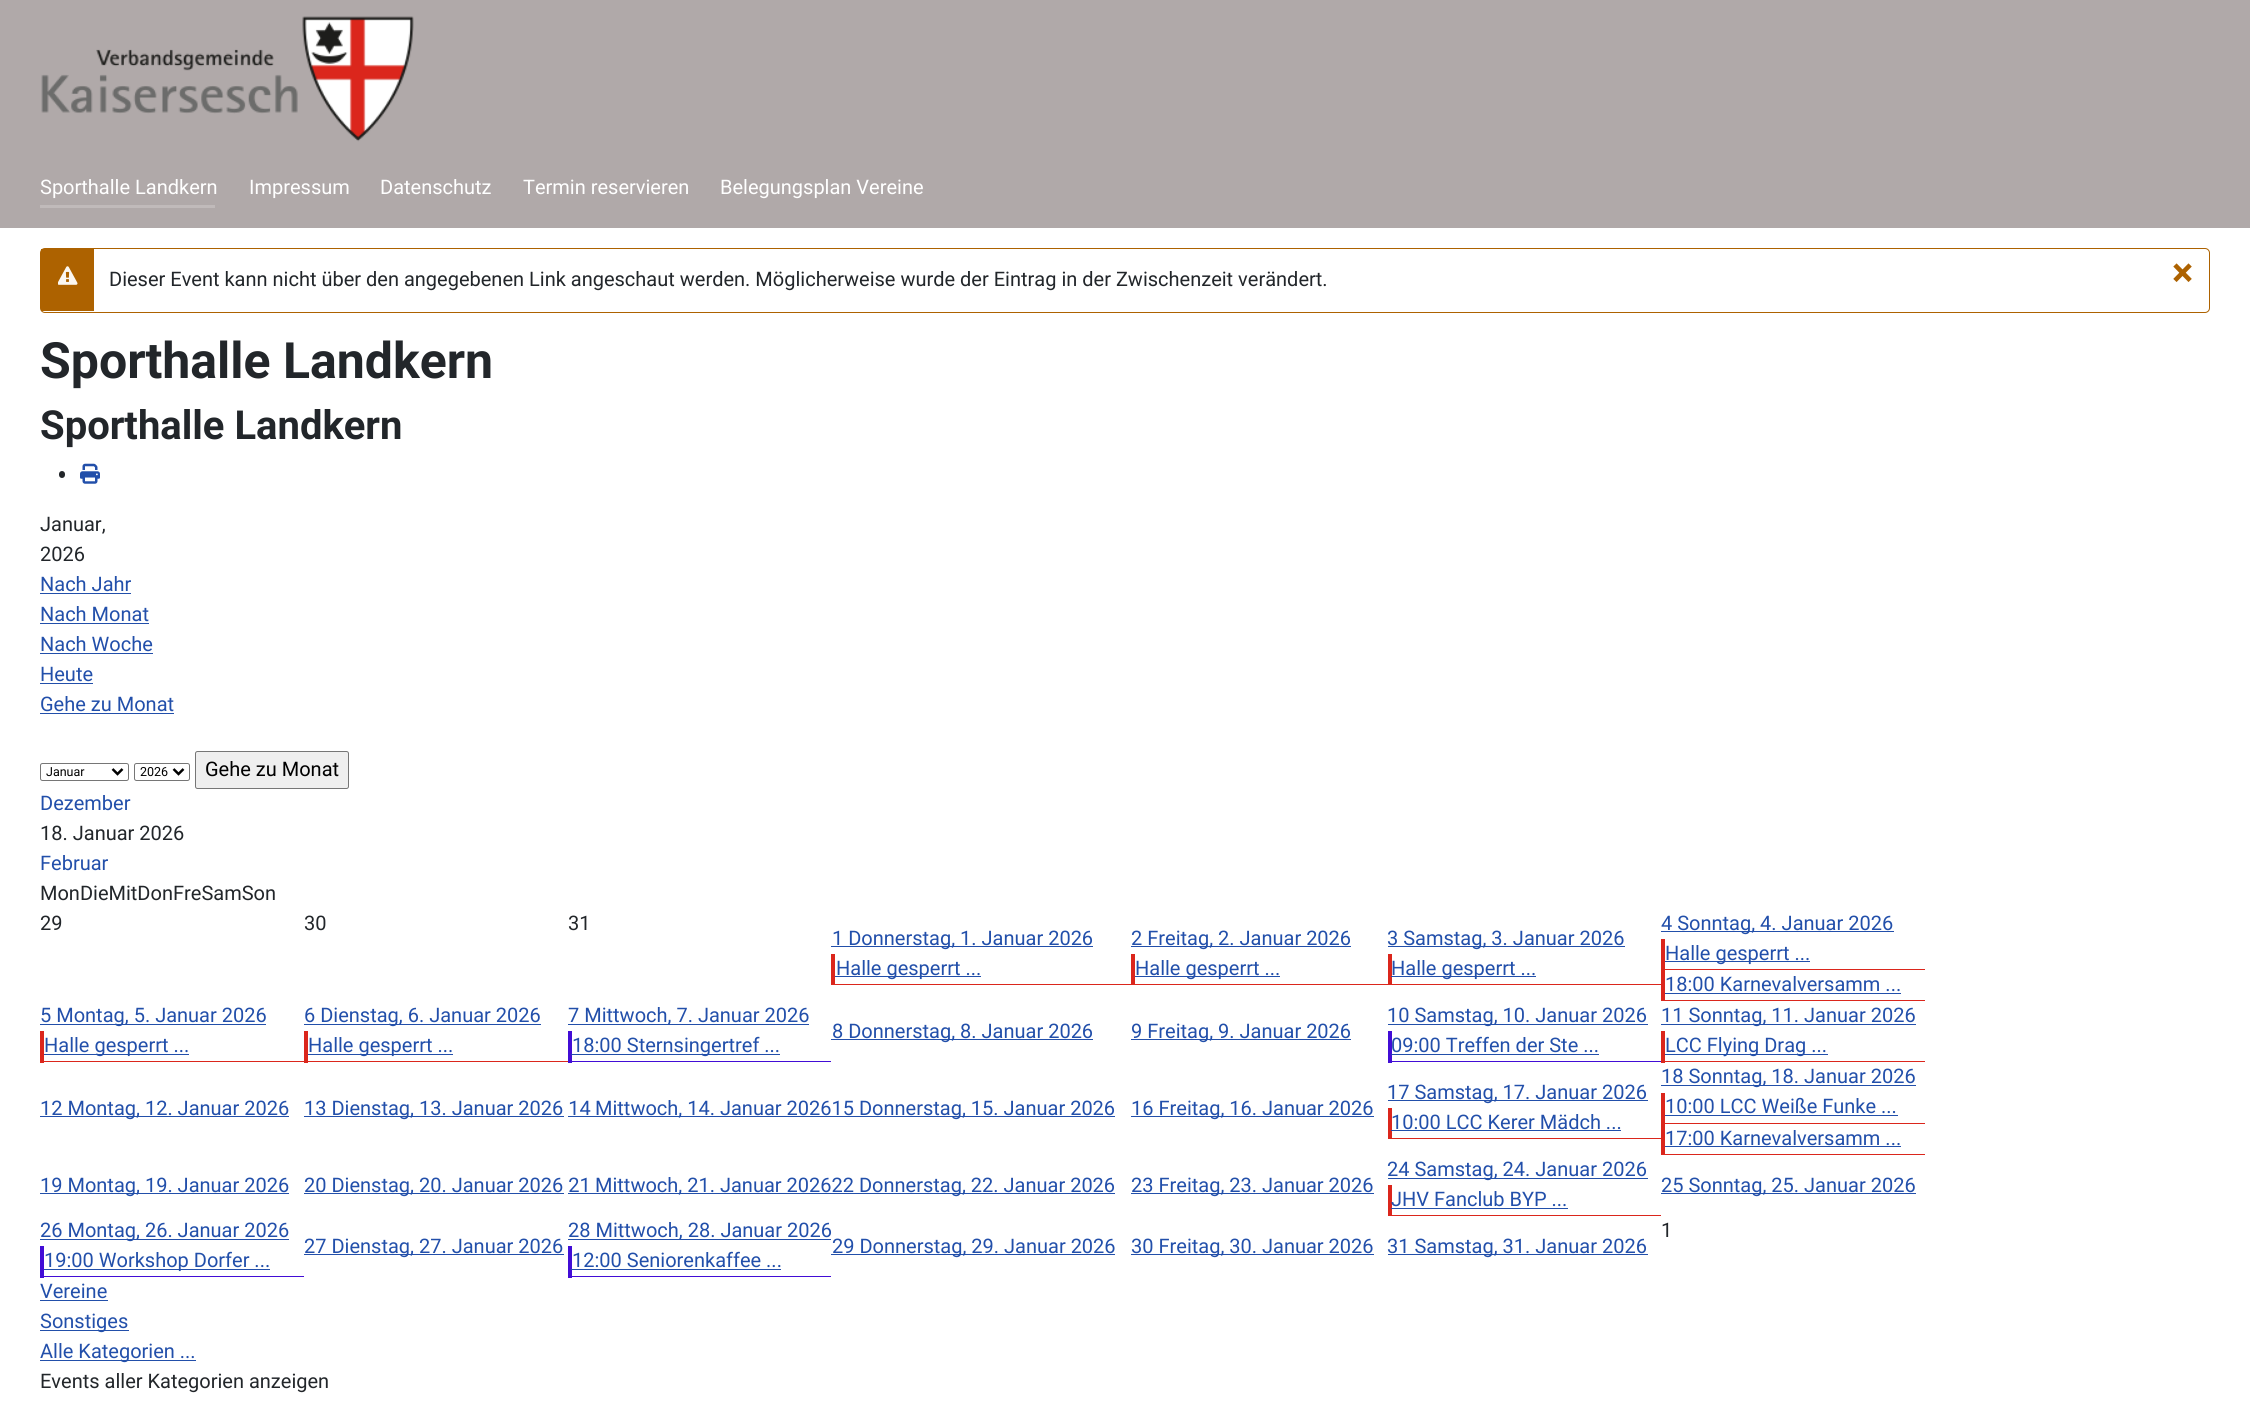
import math
import cairo


def use_color(cr, r, g, b):
  cr.set_source_rgb(r / 255, g / 255, b / 255)

def text(cr, x, y, s, family, size, color, bold=False, italic=False):
  cr.select_font_face(family, cairo.FONT_SLANT_ITALIC if italic else cairo.FONT_SLANT_NORMAL, cairo.FONT_WEIGHT_BOLD if bold else cairo.FONT_WEIGHT_NORMAL)
  cr.set_font_size(size)
  use_color(cr, *color)
  cr.move_to(x, y)
  cr.show_text(s)

def box(cr, x, y, w, h, *color):
  use_color(cr, *color)
  cr.rectangle(x, y, w, h)
  cr.fill()

def round_rect(cr, x, y, w, h, r):
  cr.new_sub_path()
  for i, (u, v) in enumerate([(x + w - r, y + h - r), (x + r, y + h - r), (x + r, y + r), (x + w - r, y + r)]):
    cr.arc(u, v, r, i * math.pi / 2, (i + 1) * math.pi / 2)
  cr.close_path()

def picture(cr, path, x, y, w, h):
  cr.save()
  cr.set_source_surface(cairo.ImageSurface.create_from_png(path), x, y)
  cr.rectangle(x, y, w, h)
  cr.fill()
  cr.restore()

def draw(cr):
  use_color(cr, 255, 255, 255)
  cr.paint()
  box(cr, 0, 0, 2250, 228, 176, 169, 169)
  picture(cr, "img_01.png", 41, 16, 373, 126)
  box(cr, 40, 205, 175, 3, 192, 186, 186)
  round_rect(cr, 40.5, 248.5, 2169, 64, 4.5)
  use_color(cr, 173, 98, 0)
  cr.set_line_width(1)
  cr.stroke()
  box(cr, 41, 249, 53, 62, 173, 98, 0)
  picture(cr, "img_02.png", 58, 266, 20, 19)
  use_color(cr, 34, 38, 42)
  round_rect(cr, 59, 471, 6, 7, 3)
  cr.fill()
  picture(cr, "img_03.png", 80, 463, 20, 21)
  box(cr, 40, 593, 91, 1, 34, 79, 170)
  box(cr, 40, 623, 109, 1, 34, 79, 170)
  box(cr, 40, 653, 113, 1, 34, 79, 170)
  box(cr, 40, 683, 53, 1, 34, 79, 170)
  box(cr, 40, 713, 134, 1, 34, 79, 170)
  round_rect(cr, 40.5, 763.5, 88, 17, 2)
  use_color(cr, 118, 118, 118)
  cr.stroke()
  cr.new_path()
  cr.move_to(112.5, 769)
  cr.line_to(117.5, 774)
  cr.line_to(122.5, 769)
  use_color(cr, 0, 0, 0)
  cr.set_line_width(2.5)
  cr.stroke()
  round_rect(cr, 134.5, 763.5, 55, 17, 2)
  use_color(cr, 118, 118, 118)
  cr.set_line_width(1)
  cr.stroke()
  cr.new_path()
  cr.move_to(173.5, 769)
  cr.line_to(178.5, 774)
  cr.line_to(183.5, 769)
  use_color(cr, 0, 0, 0)
  cr.set_line_width(2.5)
  cr.stroke()
  use_color(cr, 239, 239, 239)
  round_rect(cr, 195.5, 751.5, 153, 37, 2)
  cr.fill_preserve()
  use_color(cr, 118, 118, 118)
  cr.set_line_width(1)
  cr.stroke()
  box(cr, 831, 946, 262, 1, 34, 79, 170)
  box(cr, 831, 984, 830, 1, 219, 38, 28)
  box(cr, 831, 954, 4, 31, 219, 38, 28)
  box(cr, 835, 976, 146, 1, 34, 79, 170)
  box(cr, 1131, 946, 220, 1, 34, 79, 170)
  box(cr, 1131, 954, 4, 31, 219, 38, 28)
  box(cr, 1135, 976, 145, 1, 34, 79, 170)
  box(cr, 1388, 946, 237, 1, 34, 79, 170)
  box(cr, 1388, 954, 4, 31, 219, 38, 28)
  box(cr, 1391, 976, 145, 1, 34, 79, 170)
  box(cr, 1661, 931, 233, 1, 34, 79, 170)
  box(cr, 1661, 969, 264, 1, 219, 38, 28)
  box(cr, 1661, 939, 4, 31, 219, 38, 28)
  box(cr, 1665, 961, 145, 1, 34, 79, 170)
  box(cr, 1661, 1000, 264, 1, 219, 38, 28)
  box(cr, 1661, 970, 4, 31, 219, 38, 28)
  box(cr, 1665, 993, 236, 1, 34, 79, 170)
  box(cr, 40, 1024, 226, 1, 34, 79, 170)
  box(cr, 40, 1061, 528, 1, 219, 38, 28)
  box(cr, 40, 1031, 4, 32, 219, 38, 28)
  box(cr, 44, 1054, 145, 1, 34, 79, 170)
  box(cr, 304, 1024, 237, 1, 34, 79, 170)
  box(cr, 304, 1031, 4, 32, 219, 38, 28)
  box(cr, 308, 1054, 145, 1, 34, 79, 170)
  box(cr, 568, 1024, 241, 1, 34, 79, 170)
  box(cr, 568, 1061, 263, 1, 66, 13, 214)
  box(cr, 568, 1031, 4, 32, 66, 13, 214)
  box(cr, 571, 1054, 209, 1, 34, 79, 170)
  box(cr, 831, 1039, 262, 1, 34, 79, 170)
  box(cr, 1131, 1039, 220, 1, 34, 79, 170)
  box(cr, 1388, 1024, 260, 1, 34, 79, 170)
  box(cr, 1388, 1061, 273, 1, 66, 13, 214)
  box(cr, 1388, 1031, 4, 32, 66, 13, 214)
  box(cr, 1391, 1054, 208, 1, 34, 79, 170)
  box(cr, 1661, 1024, 255, 1, 34, 79, 170)
  box(cr, 1661, 1061, 264, 1, 219, 38, 28)
  box(cr, 1661, 1031, 4, 32, 219, 38, 28)
  box(cr, 1665, 1054, 163, 1, 34, 79, 170)
  box(cr, 40, 1116, 249, 1, 34, 79, 170)
  box(cr, 304, 1116, 260, 1, 34, 79, 170)
  box(cr, 568, 1116, 547, 1, 34, 79, 170)
  box(cr, 1131, 1116, 243, 1, 34, 79, 170)
  box(cr, 1388, 1100, 260, 1, 34, 79, 170)
  box(cr, 1388, 1138, 273, 1, 219, 38, 28)
  box(cr, 1388, 1108, 4, 31, 219, 38, 28)
  box(cr, 1391, 1130, 230, 1, 34, 79, 170)
  box(cr, 1661, 1085, 255, 1, 34, 79, 170)
  box(cr, 1661, 1123, 264, 1, 219, 38, 28)
  box(cr, 1661, 1093, 4, 31, 219, 38, 28)
  box(cr, 1665, 1115, 233, 1, 34, 79, 170)
  box(cr, 1661, 1154, 264, 1, 219, 38, 28)
  box(cr, 1661, 1124, 4, 31, 219, 38, 28)
  box(cr, 1665, 1146, 236, 1, 34, 79, 170)
  box(cr, 40, 1193, 249, 1, 34, 79, 170)
  box(cr, 304, 1193, 260, 1, 34, 79, 170)
  box(cr, 568, 1193, 547, 1, 34, 79, 170)
  box(cr, 1131, 1193, 243, 1, 34, 79, 170)
  box(cr, 1388, 1178, 260, 1, 34, 79, 170)
  box(cr, 1388, 1215, 273, 1, 219, 38, 28)
  box(cr, 1388, 1185, 4, 31, 219, 38, 28)
  box(cr, 1391, 1208, 177, 1, 34, 79, 170)
  box(cr, 1661, 1193, 255, 1, 34, 79, 170)
  box(cr, 40, 1239, 249, 1, 34, 79, 170)
  box(cr, 40, 1276, 264, 1, 66, 13, 214)
  box(cr, 40, 1246, 4, 32, 66, 13, 214)
  box(cr, 44, 1269, 226, 1, 34, 79, 170)
  box(cr, 568, 1239, 263, 1, 34, 79, 170)
  box(cr, 568, 1276, 263, 1, 66, 13, 214)
  box(cr, 568, 1246, 4, 32, 66, 13, 214)
  box(cr, 571, 1269, 210, 1, 34, 79, 170)
  box(cr, 304, 1254, 260, 1, 34, 79, 170)
  box(cr, 831, 1254, 284, 1, 34, 79, 170)
  box(cr, 1131, 1254, 243, 1, 34, 79, 170)
  box(cr, 1388, 1254, 260, 1, 34, 79, 170)
  box(cr, 40, 1300, 68, 1, 34, 79, 170)
  box(cr, 40, 1330, 89, 1, 34, 79, 170)
  box(cr, 40, 1360, 156, 1, 34, 79, 170)
  text(cr, 40, 194, "Sporthalle Landkern", "Roboto", 20, (255, 255, 255))
  text(cr, 249, 194, "Impressum", "Roboto", 20, (255, 255, 255))
  text(cr, 380, 194, "Datenschutz", "Roboto", 20, (255, 255, 255))
  text(cr, 523, 194, "Termin reservieren", "Roboto", 20, (255, 255, 255))
  text(cr, 720, 194, "Belegungsplan Vereine", "Roboto", 20, (255, 255, 255))
  text(cr, 109, 286, "Dieser Event kann nicht über den angegebenen Link angeschaut werden. Möglicherweise wurde der Eintrag in der Zwischenzeit verändert.", "Roboto", 20, (34, 38, 42))
  text(cr, 2172, 286, "×", "Roboto", 40, (173, 98, 0), bold=True)
  text(cr, 40, 378, "Sporthalle Landkern", "Roboto", 50, (34, 38, 42), bold=True)
  text(cr, 40, 439, "Sporthalle Landkern", "Roboto", 40, (34, 38, 42), bold=True)
  text(cr, 40, 531, "Januar,", "Roboto", 20, (34, 38, 42))
  text(cr, 40, 561, "2026", "Roboto", 20, (34, 38, 42))
  text(cr, 40, 591, "Nach Jahr", "Roboto", 20, (34, 79, 170))
  text(cr, 40, 621, "Nach Monat", "Roboto", 20, (34, 79, 170))
  text(cr, 40, 651, "Nach Woche", "Roboto", 20, (34, 79, 170))
  text(cr, 40, 681, "Heute", "Roboto", 20, (34, 79, 170))
  text(cr, 40, 711, "Gehe zu Monat", "Roboto", 20, (34, 79, 170))
  text(cr, 46, 776, "Januar", "Roboto", 12.5, (0, 0, 0))
  text(cr, 140, 776, "2026", "Roboto", 12.5, (0, 0, 0))
  text(cr, 205, 776, "Gehe zu Monat", "Roboto", 20, (0, 0, 0))
  text(cr, 40, 810, "Dezember", "Roboto", 20, (34, 79, 170))
  text(cr, 40, 840, "18. Januar 2026", "Roboto", 20, (34, 38, 42))
  text(cr, 40, 870, "Februar", "Roboto", 20, (34, 79, 170))
  text(cr, 40, 900, "MonDieMitDonFreSamSon", "Roboto", 20, (34, 38, 42))
  text(cr, 40, 930, "29", "Roboto", 20, (34, 38, 42))
  text(cr, 304, 930, "30", "Roboto", 20, (34, 38, 42))
  text(cr, 568, 930, "31", "Roboto", 20, (34, 38, 42))
  text(cr, 832, 945, "1 Donnerstag, 1. Januar 2026", "Roboto", 20, (34, 79, 170))
  text(cr, 836, 975, "Halle gesperrt ...", "Roboto", 20, (34, 79, 170))
  text(cr, 1131, 945, "2 Freitag, 2. Januar 2026", "Roboto", 20, (34, 79, 170))
  text(cr, 1135, 975, "Halle gesperrt ...", "Roboto", 20, (34, 79, 170))
  text(cr, 1387, 945, "3 Samstag, 3. Januar 2026", "Roboto", 20, (34, 79, 170))
  text(cr, 1391, 975, "Halle gesperrt ...", "Roboto", 20, (34, 79, 170))
  text(cr, 1661, 930, "4 Sonntag, 4. Januar 2026", "Roboto", 20, (34, 79, 170))
  text(cr, 1665, 960, "Halle gesperrt ...", "Roboto", 20, (34, 79, 170))
  text(cr, 1665, 991, "18:00 Karnevalversamm ...", "Roboto", 20, (34, 79, 170))
  text(cr, 40, 1022, "5 Montag, 5. Januar 2026", "Roboto", 20, (34, 79, 170))
  text(cr, 44, 1052, "Halle gesperrt ...", "Roboto", 20, (34, 79, 170))
  text(cr, 304, 1022, "6 Dienstag, 6. Januar 2026", "Roboto", 20, (34, 79, 170))
  text(cr, 308, 1052, "Halle gesperrt ...", "Roboto", 20, (34, 79, 170))
  text(cr, 568, 1022, "7 Mittwoch, 7. Januar 2026", "Roboto", 20, (34, 79, 170))
  text(cr, 572, 1052, "18:00 Sternsingertref ...", "Roboto", 20, (34, 79, 170))
  text(cr, 832, 1038, "8 Donnerstag, 8. Januar 2026", "Roboto", 20, (34, 79, 170))
  text(cr, 1131, 1038, "9 Freitag, 9. Januar 2026", "Roboto", 20, (34, 79, 170))
  text(cr, 1387, 1022, "10 Samstag, 10. Januar 2026", "Roboto", 20, (34, 79, 170))
  text(cr, 1391, 1052, "09:00 Treffen der Ste ...", "Roboto", 20, (34, 79, 170))
  text(cr, 1661, 1022, "11 Sonntag, 11. Januar 2026", "Roboto", 20, (34, 79, 170))
  text(cr, 1665, 1052, "LCC Flying Drag ...", "Roboto", 20, (34, 79, 170))
  text(cr, 40, 1115, "12 Montag, 12. Januar 2026", "Roboto", 20, (34, 79, 170))
  text(cr, 304, 1115, "13 Dienstag, 13. Januar 2026 14", "Roboto", 20, (34, 79, 170))
  text(cr, 595, 1115, "Mittwoch, 14. Januar 202615 Donnerstag, 15. Januar 2026", "Roboto", 20, (34, 79, 170))
  text(cr, 1131, 1115, "16 Freitag, 16. Januar 2026", "Roboto", 20, (34, 79, 170))
  text(cr, 1387, 1099, "17 Samstag, 17. Januar 2026", "Roboto", 20, (34, 79, 170))
  text(cr, 1391, 1129, "10:00 LCC Kerer Mädch ...", "Roboto", 20, (34, 79, 170))
  text(cr, 1661, 1083, "18 Sonntag, 18. Januar 2026", "Roboto", 20, (34, 79, 170))
  text(cr, 1665, 1113, "10:00 LCC Weiße Funke ...", "Roboto", 20, (34, 79, 170))
  text(cr, 1665, 1145, "17:00 Karnevalversamm ...", "Roboto", 20, (34, 79, 170))
  text(cr, 40, 1192, "19 Montag, 19. Januar 2026", "Roboto", 20, (34, 79, 170))
  text(cr, 304, 1192, "20 Dienstag, 20. Januar 2026 21", "Roboto", 20, (34, 79, 170))
  text(cr, 595, 1192, "Mittwoch, 21. Januar 202622 Donnerstag, 22. Januar 2026", "Roboto", 20, (34, 79, 170))
  text(cr, 1131, 1192, "23 Freitag, 23. Januar 2026", "Roboto", 20, (34, 79, 170))
  text(cr, 1387, 1176, "24 Samstag, 24. Januar 2026", "Roboto", 20, (34, 79, 170))
  text(cr, 1391, 1206, "JHV Fanclub BYP ...", "Roboto", 20, (34, 79, 170))
  text(cr, 1661, 1192, "25 Sonntag, 25. Januar 2026", "Roboto", 20, (34, 79, 170))
  text(cr, 40, 1237, "26 Montag, 26. Januar 2026", "Roboto", 20, (34, 79, 170))
  text(cr, 44, 1267, "19:00 Workshop Dorfer ...", "Roboto", 20, (34, 79, 170))
  text(cr, 568, 1237, "28 Mittwoch, 28. Januar 2026", "Roboto", 20, (34, 79, 170))
  text(cr, 572, 1267, "12:00 Seniorenkaffee ...", "Roboto", 20, (34, 79, 170))
  text(cr, 1661, 1237, "1", "Roboto", 20, (34, 38, 42))
  text(cr, 304, 1253, "27 Dienstag, 27. Januar 2026", "Roboto", 20, (34, 79, 170))
  text(cr, 832, 1253, "29 Donnerstag, 29. Januar 2026", "Roboto", 20, (34, 79, 170))
  text(cr, 1131, 1253, "30 Freitag, 30. Januar 2026", "Roboto", 20, (34, 79, 170))
  text(cr, 1387, 1253, "31 Samstag, 31. Januar 2026", "Roboto", 20, (34, 79, 170))
  text(cr, 40, 1298, "Vereine", "Roboto", 20, (34, 79, 170))
  text(cr, 40, 1328, "Sonstiges", "Roboto", 20, (34, 79, 170))
  text(cr, 40, 1358, "Alle Kategorien ...", "Roboto", 20, (34, 79, 170))
  text(cr, 40, 1388, "Events aller Kategorien anzeigen", "Roboto", 20, (34, 38, 42))


surface = cairo.ImageSurface(cairo.FORMAT_RGB24, 2250, 1404)
cr = cairo.Context(surface)
options = cairo.FontOptions()
options.set_hint_metrics(cairo.HINT_METRICS_OFF)
options.set_hint_style(cairo.HINT_STYLE_NONE)
cr.set_font_options(options)
cr.set_miter_limit(4)
draw(cr)
surface.write_to_png("out.png")
